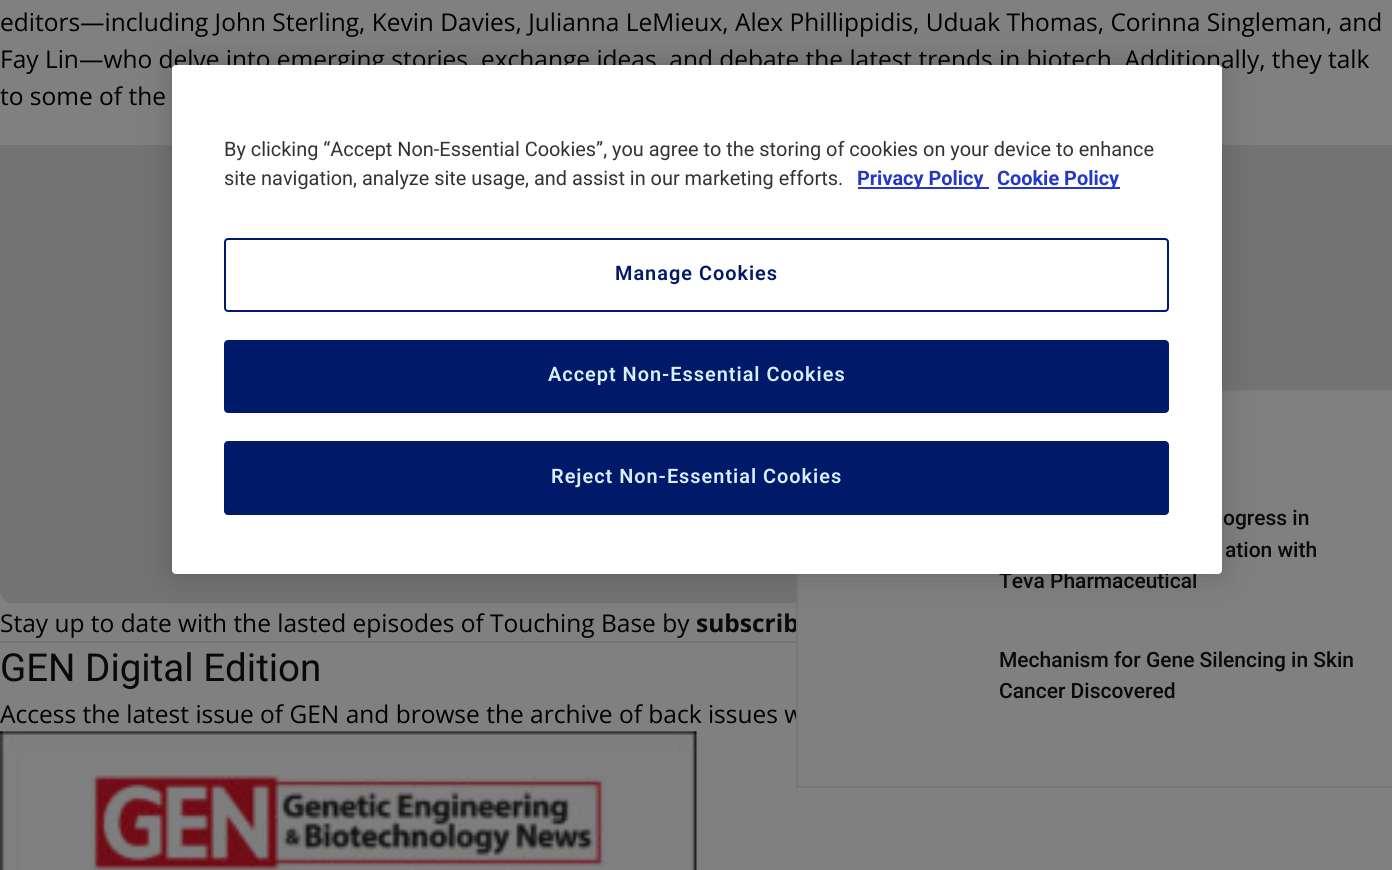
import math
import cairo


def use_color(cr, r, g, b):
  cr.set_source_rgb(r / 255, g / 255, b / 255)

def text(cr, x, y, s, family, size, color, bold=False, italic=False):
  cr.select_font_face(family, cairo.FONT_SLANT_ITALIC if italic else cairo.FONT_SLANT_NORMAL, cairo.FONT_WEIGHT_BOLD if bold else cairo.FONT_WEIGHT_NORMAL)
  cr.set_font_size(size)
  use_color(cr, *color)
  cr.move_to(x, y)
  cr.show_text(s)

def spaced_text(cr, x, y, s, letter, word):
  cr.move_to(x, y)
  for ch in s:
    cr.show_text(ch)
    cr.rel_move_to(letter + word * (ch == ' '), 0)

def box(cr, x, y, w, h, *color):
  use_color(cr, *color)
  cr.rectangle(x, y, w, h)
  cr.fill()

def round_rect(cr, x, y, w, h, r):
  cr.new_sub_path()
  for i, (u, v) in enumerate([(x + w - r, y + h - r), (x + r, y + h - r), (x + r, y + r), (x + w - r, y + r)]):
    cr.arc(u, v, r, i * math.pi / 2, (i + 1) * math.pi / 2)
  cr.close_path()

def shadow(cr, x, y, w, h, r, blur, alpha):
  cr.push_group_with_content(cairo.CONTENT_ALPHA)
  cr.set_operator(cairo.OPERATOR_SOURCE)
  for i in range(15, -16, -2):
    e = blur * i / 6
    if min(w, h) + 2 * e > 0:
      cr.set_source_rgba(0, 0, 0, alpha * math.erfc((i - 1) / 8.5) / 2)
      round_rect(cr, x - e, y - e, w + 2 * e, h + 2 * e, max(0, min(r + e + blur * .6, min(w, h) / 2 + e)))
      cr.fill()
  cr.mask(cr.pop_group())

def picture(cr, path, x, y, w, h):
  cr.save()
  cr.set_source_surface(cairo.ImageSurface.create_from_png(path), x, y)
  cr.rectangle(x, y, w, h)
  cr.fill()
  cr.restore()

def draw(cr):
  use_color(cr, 128, 128, 128)
  cr.paint()
  picture(cr, "img_01.png", 0, 116, 1392, 488)
  box(cr, 0, 641, 796, 2, 115, 116, 118)
  picture(cr, "img_02.png", 0, 731, 697, 139)
  box(cr, 1222, 389, 170, 2, 119, 119, 119)
  box(cr, 796, 786, 596, 2, 119, 119, 119)
  text(cr, 0, 31, "editors—including John Sterling, Kevin Davies, Julianna LeMieux, Alex Phillippidis, Uduak Thomas, Corinna Singleman, and", "Open Sans", 24.5, (0, 0, 0))
  text(cr, 0, 68, "Fay Lin—who delve into emerging stories", "Open Sans", 24.5, (0, 0, 0))
  text(cr, 481, 68, "exchange ideas, and debate the latest trends in biotech. Additionally, they talk", "Open Sans", 24.5, (0, 0, 0))
  text(cr, 0, 105, "to some of the", "Open Sans", 24.5, (0, 0, 0))
  text(cr, 0, 632, "Stay up to date with the lasted episodes of Touching Base by", "Open Sans", 24.5, (0, 0, 0))
  text(cr, 696, 632, "subscrib", "Open Sans", 24.5, (9, 9, 9), bold=True)
  text(cr, 0, 681, "GEN Digital Edition", "Roboto", 38.5, (9, 9, 9))
  text(cr, 0, 723, "Access the latest issue of GEN and browse the archive of back issues w", "Open Sans", 24.5, (0, 0, 0))
  box(cr, 798, 391, 594, 332, 128, 128, 128)
  box(cr, 796, 574, 2, 214, 119, 119, 119)
  use_color(cr, 0, 0, 0)
  shadow(cr, 172, 65, 1050, 509, 4, 16, 0.2)
  text(cr, 1223, 525, "ogress in", "Roboto Medium", 21, (9, 9, 9))
  text(cr, 1225, 557, "ation with", "Roboto Medium", 21, (9, 9, 9))
  text(cr, 999, 588, "Teva Pharmaceutical", "Roboto Medium", 21, (9, 9, 9))
  use_color(cr, 255, 255, 255)
  round_rect(cr, 172, 65, 1050, 509, 4)
  cr.fill()
  use_color(cr, 0, 26, 105)
  round_rect(cr, 225, 341, 943, 71, 3)
  cr.fill_preserve()
  cr.stroke()
  cr.select_font_face("Roboto SemiBold")
  cr.set_font_size(19.9)
  use_color(cr, 217, 238, 255)
  spaced_text(cr, 548, 381, "Accept Non-Essential Cookies", 1, 0)
  use_color(cr, 0, 26, 105)
  round_rect(cr, 225, 442, 943, 72, 3)
  cr.fill_preserve()
  cr.stroke()
  use_color(cr, 217, 238, 255)
  spaced_text(cr, 551, 483, "Reject Non-Essential Cookies", 1, 0)
  round_rect(cr, 225, 239, 943, 72, 3)
  use_color(cr, 0, 26, 105)
  cr.stroke()
  spaced_text(cr, 615, 280, "Manage Cookies", 1, 0)
  box(cr, 998, 187, 122, 2, 37, 55, 198)
  text(cr, 997, 185, "Cookie Policy", "Roboto", 19.9, (37, 55, 198), bold=True)
  box(cr, 858, 187, 131, 2, 37, 55, 198)
  text(cr, 857, 185, "Privacy Policy", "Roboto", 19.9, (37, 55, 198), bold=True)
  text(cr, 224, 185, "site navigation, analyze site usage, and assist in our marketing efforts.", "Roboto", 19.9, (51, 51, 51))
  text(cr, 224, 156, "By clicking “Accept Non-Essential Cookies”, you agree to the storing of cookies on your device to enhance", "Roboto", 19.9, (51, 51, 51))
  text(cr, 999, 667, "Mechanism for Gene Silencing in Skin", "Roboto Medium", 21, (9, 9, 9))
  text(cr, 999, 698, "Cancer Discovered", "Roboto Medium", 21, (9, 9, 9))


surface = cairo.ImageSurface(cairo.FORMAT_RGB24, 1392, 870)
cr = cairo.Context(surface)
options = cairo.FontOptions()
options.set_hint_metrics(cairo.HINT_METRICS_OFF)
options.set_hint_style(cairo.HINT_STYLE_NONE)
cr.set_font_options(options)
cr.set_miter_limit(4)
draw(cr)
surface.write_to_png("out.png")
